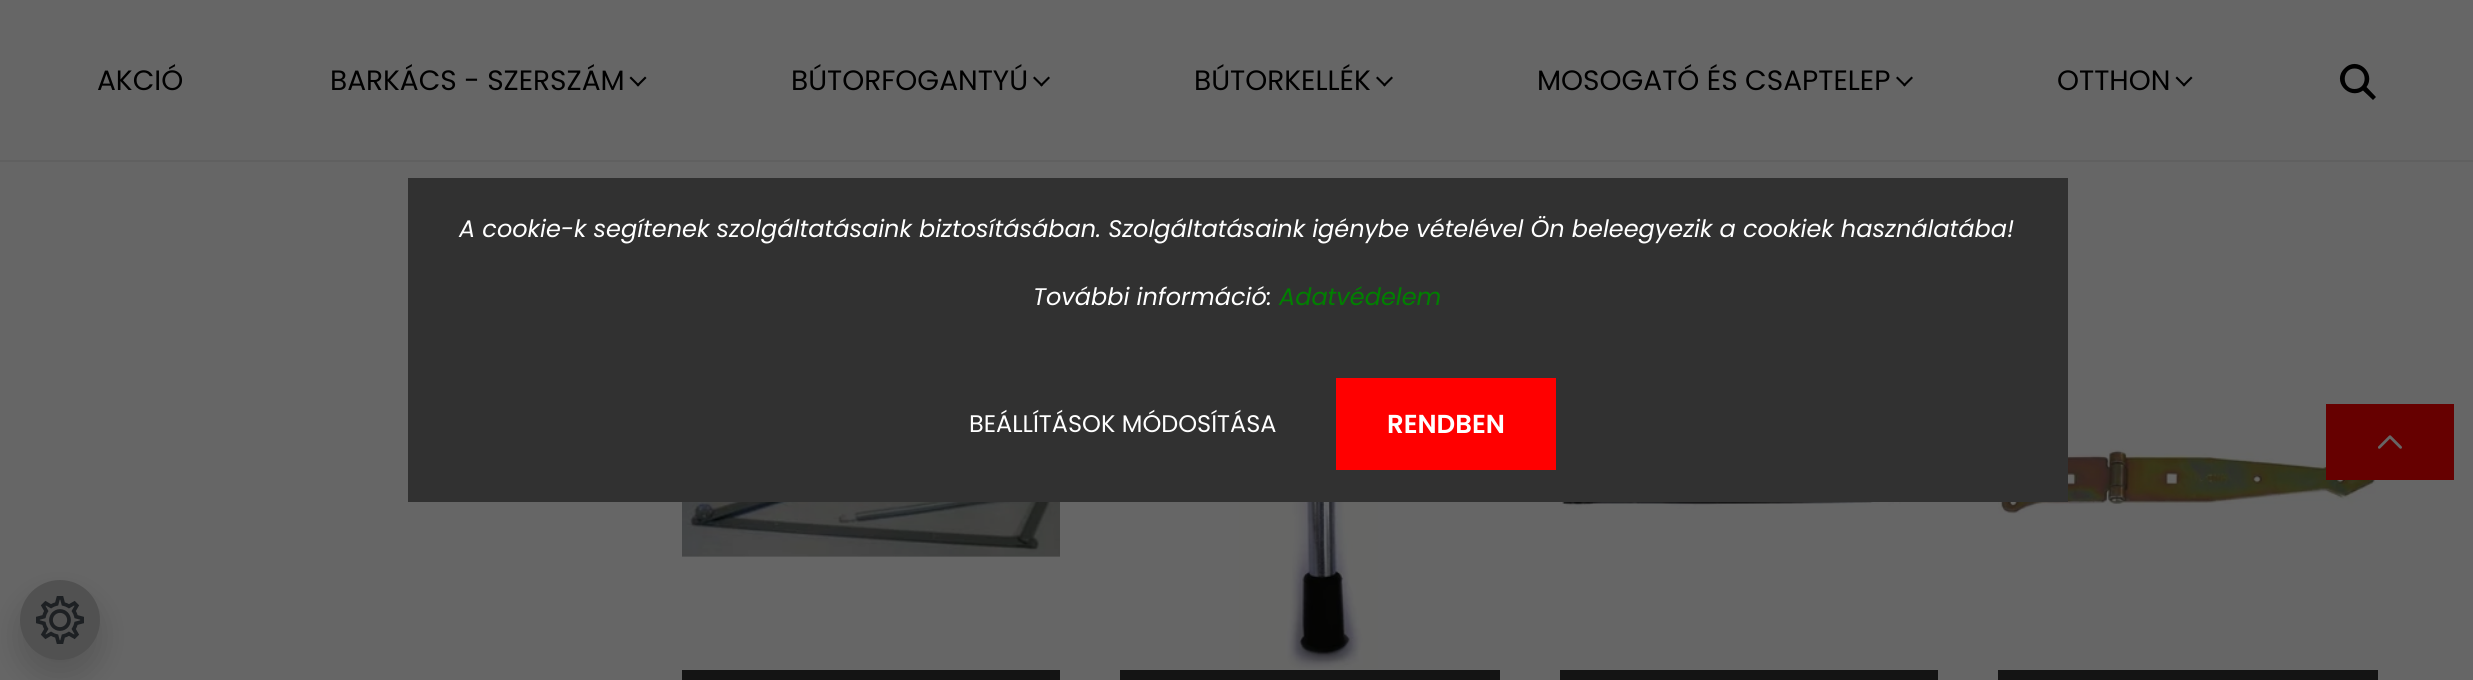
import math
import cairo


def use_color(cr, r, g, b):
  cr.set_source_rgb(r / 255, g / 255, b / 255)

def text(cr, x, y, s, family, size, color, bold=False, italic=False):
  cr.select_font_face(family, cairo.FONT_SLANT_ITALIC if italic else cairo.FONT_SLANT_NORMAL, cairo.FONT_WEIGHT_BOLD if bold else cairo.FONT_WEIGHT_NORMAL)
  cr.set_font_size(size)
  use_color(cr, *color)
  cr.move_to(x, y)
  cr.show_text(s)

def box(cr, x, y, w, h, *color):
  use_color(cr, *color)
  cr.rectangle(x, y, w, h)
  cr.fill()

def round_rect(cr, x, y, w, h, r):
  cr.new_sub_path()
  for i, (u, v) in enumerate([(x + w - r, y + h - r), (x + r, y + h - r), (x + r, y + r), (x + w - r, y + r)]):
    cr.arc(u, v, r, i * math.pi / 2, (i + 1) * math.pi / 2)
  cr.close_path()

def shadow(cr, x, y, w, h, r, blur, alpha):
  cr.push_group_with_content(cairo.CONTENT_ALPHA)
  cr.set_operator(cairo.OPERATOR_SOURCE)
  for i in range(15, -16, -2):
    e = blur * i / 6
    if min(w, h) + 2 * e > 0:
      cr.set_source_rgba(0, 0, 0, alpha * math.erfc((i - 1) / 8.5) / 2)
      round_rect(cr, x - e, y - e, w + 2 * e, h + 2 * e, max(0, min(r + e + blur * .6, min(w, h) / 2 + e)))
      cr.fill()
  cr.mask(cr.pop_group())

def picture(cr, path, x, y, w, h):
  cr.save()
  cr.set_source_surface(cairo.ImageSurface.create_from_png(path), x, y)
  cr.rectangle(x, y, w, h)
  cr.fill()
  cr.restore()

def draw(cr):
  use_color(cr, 102, 102, 102)
  cr.paint()
  box(cr, 0, 160, 2473, 2, 96, 96, 96)
  use_color(cr, 0, 0, 0)
  cr.new_path()
  cr.move_to(645, 76.5)
  cr.line_to(646.5, 78)
  cr.line_to(638, 86.5)
  cr.line_to(636.5, 85)
  cr.close_path()
  cr.fill()
  cr.new_path()
  cr.move_to(631, 76.5)
  cr.line_to(639.5, 85)
  cr.line_to(638, 86.5)
  cr.line_to(629.5, 78)
  cr.close_path()
  cr.fill()
  cr.new_path()
  cr.move_to(1048.5, 76.5)
  cr.line_to(1050, 78)
  cr.line_to(1041.5, 86.5)
  cr.line_to(1040, 85)
  cr.close_path()
  cr.fill()
  cr.new_path()
  cr.move_to(1034.5, 76.5)
  cr.line_to(1043, 85)
  cr.line_to(1041.5, 86.5)
  cr.line_to(1033, 78)
  cr.close_path()
  cr.fill()
  cr.new_path()
  cr.move_to(1391.5, 76.5)
  cr.line_to(1393, 78)
  cr.line_to(1384.5, 86.5)
  cr.line_to(1383, 85)
  cr.close_path()
  cr.fill()
  cr.new_path()
  cr.move_to(1377.5, 76.5)
  cr.line_to(1386, 85)
  cr.line_to(1384.5, 86.5)
  cr.line_to(1376, 78)
  cr.close_path()
  cr.fill()
  cr.new_path()
  cr.move_to(1911.5, 76.5)
  cr.line_to(1913, 78)
  cr.line_to(1904.5, 86.5)
  cr.line_to(1903, 85)
  cr.close_path()
  cr.fill()
  cr.new_path()
  cr.move_to(1897.5, 76.5)
  cr.line_to(1906, 85)
  cr.line_to(1904.5, 86.5)
  cr.line_to(1896, 78)
  cr.close_path()
  cr.fill()
  cr.new_path()
  cr.move_to(2191, 76.5)
  cr.line_to(2192.5, 78)
  cr.line_to(2184, 86.5)
  cr.line_to(2182.5, 85)
  cr.close_path()
  cr.fill()
  cr.new_path()
  cr.move_to(2177, 76.5)
  cr.line_to(2185.5, 85)
  cr.line_to(2184, 86.5)
  cr.line_to(2175.5, 78)
  cr.close_path()
  cr.fill()
  cr.new_path()
  cr.move_to(2366.5, 87)
  cr.curve_to(2376.5, 73, 2357, 55.5, 2344.5, 68.5)
  cr.curve_to(2331.5, 81, 2349, 100.5, 2363, 90.5)
  cr.line_to(2373, 100)
  cr.line_to(2376, 97)
  cr.close_path()
  cr.move_to(2354.5, 89)
  cr.curve_to(2341.5, 89, 2341.5, 68.5, 2354.5, 68.5)
  cr.curve_to(2368, 68.5, 2368, 89, 2354.5, 89)
  cr.close_path()
  cr.fill()
  picture(cr, "img_01.png", 682, 502, 378, 55)
  box(cr, 682, 670, 378, 10, 20, 20, 20)
  picture(cr, "img_02.png", 1239, 502, 139, 167)
  box(cr, 1120, 670, 380, 10, 20, 20, 20)
  picture(cr, "img_03.png", 1560, 502, 378, 7)
  box(cr, 1560, 670, 378, 10, 20, 20, 20)
  picture(cr, "img_04.png", 1998, 447, 380, 67)
  box(cr, 1998, 670, 380, 10, 20, 20, 20)
  box(cr, 2326, 404, 128, 76, 102, 0, 0)
  picture(cr, "img_05.png", 2378, 435, 24, 14)
  box(cr, 408, 178, 1660, 324, 49, 49, 49)
  box(cr, 1336, 378, 220, 92, 255, 0, 0)
  use_color(cr, 0, 0, 0)
  shadow(cr, 20, 596, 80, 80, 40, 16, 0.15)
  use_color(cr, 81, 81, 81)
  cr.arc(60, 620, 40, 0, 2 * math.pi)
  cr.fill()
  picture(cr, "img_06.png", 36, 596, 48, 48)
  text(cr, 97, 90, "AKCIÓ", "Poppins", 28, (0, 0, 0))
  text(cr, 330, 90, "BARKÁCS - SZERSZÁM", "Poppins", 28, (0, 0, 0))
  text(cr, 791, 90, "BÚTORFOGANTYÚ", "Poppins", 28, (0, 0, 0))
  text(cr, 1194, 90, "BÚTORKELLÉK", "Poppins", 28, (0, 0, 0))
  text(cr, 1537, 90, "MOSOGATÓ ÉS CSAPTELEP", "Poppins", 28, (0, 0, 0))
  text(cr, 2057, 90, "OTTHON", "Poppins", 28, (0, 0, 0))
  text(cr, 459, 237, "A cookie-k segítenek szolgáltatásaink biztosításában. Szolgáltatásaink igénybe vételével Ön beleegyezik a cookiek használatába!", "Poppins", 24, (255, 255, 255), italic=True)
  text(cr, 1033, 305, "További információ:", "Poppins", 24, (255, 255, 255), italic=True)
  text(cr, 1279, 305, "Adatvédelem", "Poppins", 24, (0, 128, 0), italic=True)
  text(cr, 969, 432, "BEÁLLÍTÁSOK MÓDOSÍTÁSA", "Poppins", 24, (255, 255, 255))
  text(cr, 1387, 433, "RENDBEN", "Poppins SemiBold", 26, (255, 255, 255))


surface = cairo.ImageSurface(cairo.FORMAT_RGB24, 2473, 680)
cr = cairo.Context(surface)
options = cairo.FontOptions()
options.set_hint_metrics(cairo.HINT_METRICS_OFF)
options.set_hint_style(cairo.HINT_STYLE_NONE)
cr.set_font_options(options)
cr.set_miter_limit(4)
draw(cr)
surface.write_to_png("out.png")
